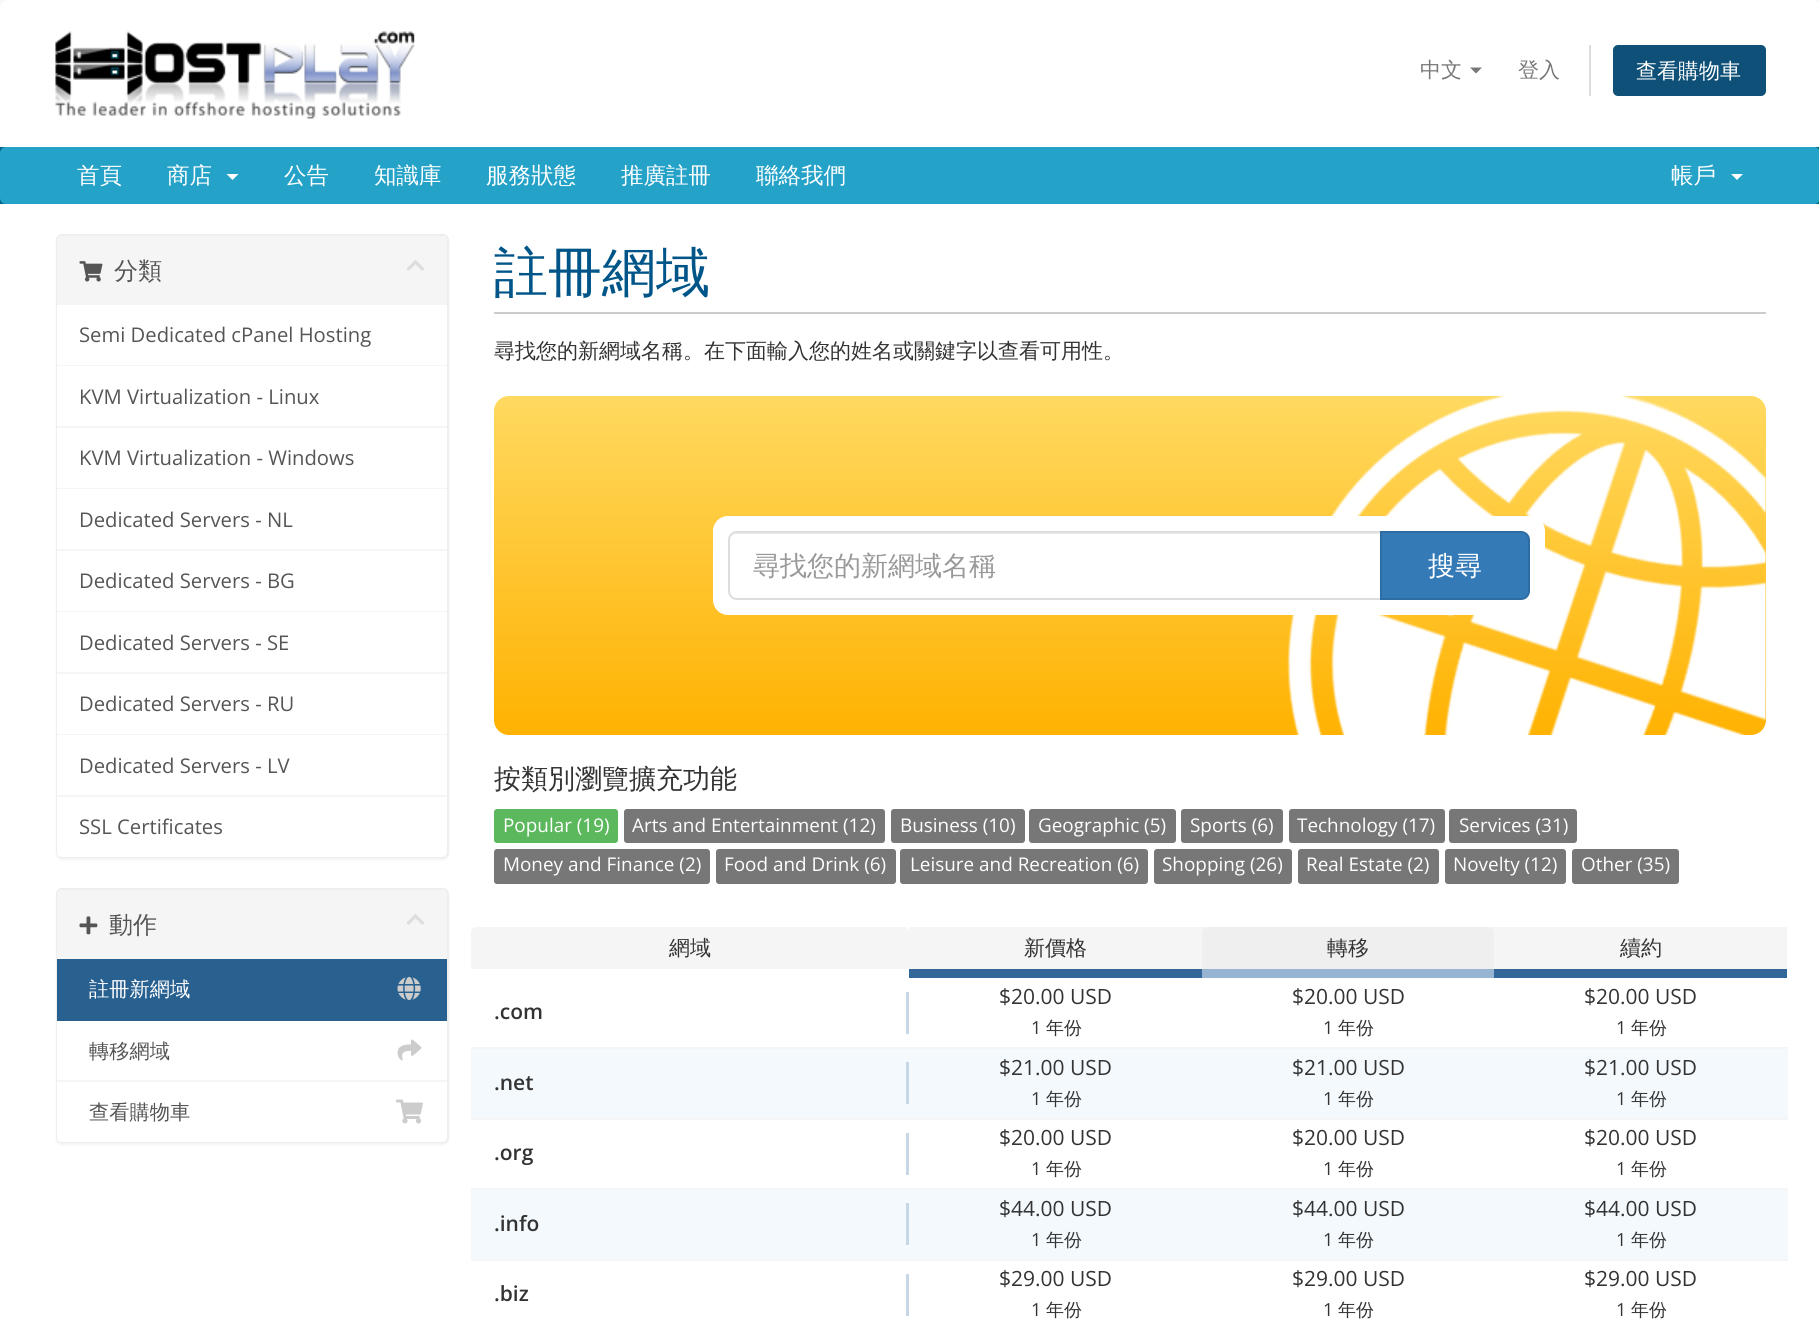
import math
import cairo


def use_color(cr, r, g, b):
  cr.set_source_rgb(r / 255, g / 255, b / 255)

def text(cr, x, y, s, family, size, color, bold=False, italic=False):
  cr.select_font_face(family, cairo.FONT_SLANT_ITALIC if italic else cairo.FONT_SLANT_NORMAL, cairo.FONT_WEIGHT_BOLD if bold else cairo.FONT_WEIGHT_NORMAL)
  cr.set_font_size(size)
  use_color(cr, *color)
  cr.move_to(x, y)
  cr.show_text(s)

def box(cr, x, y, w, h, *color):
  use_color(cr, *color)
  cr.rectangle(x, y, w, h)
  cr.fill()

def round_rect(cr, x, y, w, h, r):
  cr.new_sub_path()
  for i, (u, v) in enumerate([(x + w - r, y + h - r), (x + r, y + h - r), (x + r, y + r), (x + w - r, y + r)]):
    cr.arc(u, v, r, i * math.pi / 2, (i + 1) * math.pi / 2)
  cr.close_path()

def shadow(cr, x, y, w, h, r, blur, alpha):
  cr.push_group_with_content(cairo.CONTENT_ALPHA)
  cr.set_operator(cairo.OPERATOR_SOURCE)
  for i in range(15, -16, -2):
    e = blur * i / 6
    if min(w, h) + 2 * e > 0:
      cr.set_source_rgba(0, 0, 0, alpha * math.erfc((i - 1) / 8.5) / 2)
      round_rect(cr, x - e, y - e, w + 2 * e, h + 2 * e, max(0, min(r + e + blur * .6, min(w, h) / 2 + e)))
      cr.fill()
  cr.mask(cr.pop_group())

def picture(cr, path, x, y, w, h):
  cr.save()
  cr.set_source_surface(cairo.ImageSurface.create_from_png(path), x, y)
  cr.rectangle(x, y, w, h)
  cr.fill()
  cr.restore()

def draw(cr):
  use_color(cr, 248, 248, 248)
  cr.paint()
  use_color(cr, 255, 255, 255)
  cr.new_path()
  cr.move_to(8, 0)
  cr.line_to(1812, 0)
  cr.curve_to(1816.5, 0, 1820, 3.5, 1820, 8)
  cr.line_to(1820, 147)
  cr.line_to(0, 147)
  cr.line_to(0, 8)
  cr.curve_to(0, 3.5, 3.5, 0, 8, 0)
  cr.close_path()
  cr.fill()
  picture(cr, "img_01.png", 55, 31, 360, 88)
  use_color(cr, 119, 119, 119)
  cr.new_path()
  cr.move_to(1470, 67.5)
  cr.line_to(1482, 67.5)
  cr.line_to(1476, 73.5)
  cr.close_path()
  cr.fill()
  box(cr, 1589, 45, 2, 51, 221, 221, 221)
  use_color(cr, 14, 80, 119)
  round_rect(cr, 1613, 45, 153, 51, 5)
  cr.fill()
  box(cr, 0, 147, 1819, 57, 0, 102, 135)
  use_color(cr, 37, 162, 199)
  round_rect(cr, 0, 147, 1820, 57, 6)
  cr.fill()
  use_color(cr, 255, 255, 255)
  cr.new_path()
  cr.move_to(226.5, 174)
  cr.line_to(238.5, 174)
  cr.line_to(232.5, 180)
  cr.close_path()
  cr.fill()
  cr.new_path()
  cr.move_to(1731, 174)
  cr.line_to(1743, 174)
  cr.line_to(1737, 180)
  cr.close_path()
  cr.fill()
  box(cr, 0, 204, 1819, 1125, 255, 255, 255)
  use_color(cr, 0, 0, 0)
  shadow(cr, 56, 236, 393, 624, 6, 1, 0.05)
  use_color(cr, 255, 255, 255)
  round_rect(cr, 57, 235, 391, 622, 5)
  cr.fill_preserve()
  use_color(cr, 238, 238, 238)
  cr.stroke()
  use_color(cr, 245, 245, 245)
  cr.new_path()
  cr.move_to(62, 236)
  cr.line_to(442, 236)
  cr.curve_to(445, 236, 447, 238, 447, 241)
  cr.line_to(447, 305)
  cr.line_to(57, 305)
  cr.line_to(57, 241)
  cr.curve_to(57, 238, 59, 236, 62, 236)
  cr.close_path()
  cr.fill()
  picture(cr, "img_02.png", 79, 261, 24, 21)
  picture(cr, "img_03.png", 407, 260, 17, 11)
  box(cr, 57, 305, 1, 60, 255, 255, 255)
  box(cr, 57, 365, 390, 1, 245, 245, 245)
  box(cr, 57, 366, 1, 60, 255, 255, 255)
  box(cr, 57, 426, 390, 2, 245, 245, 245)
  box(cr, 57, 428, 1, 60, 255, 255, 255)
  box(cr, 57, 488, 390, 1, 245, 245, 245)
  box(cr, 57, 489, 1, 60, 255, 255, 255)
  box(cr, 57, 549, 390, 2, 245, 245, 245)
  box(cr, 57, 551, 1, 60, 255, 255, 255)
  box(cr, 57, 611, 390, 1, 245, 245, 245)
  box(cr, 57, 612, 1, 60, 255, 255, 255)
  box(cr, 57, 672, 390, 2, 245, 245, 245)
  box(cr, 57, 674, 1, 60, 255, 255, 255)
  box(cr, 57, 734, 390, 1, 245, 245, 245)
  box(cr, 57, 735, 1, 60, 255, 255, 255)
  box(cr, 57, 795, 390, 2, 245, 245, 245)
  use_color(cr, 255, 255, 255)
  cr.new_path()
  cr.move_to(57, 797)
  cr.line_to(447, 797)
  cr.line_to(447, 852)
  cr.curve_to(447, 855, 445, 857, 442, 857)
  cr.line_to(62, 857)
  cr.curve_to(59, 857, 57, 855, 57, 852)
  cr.close_path()
  cr.fill()
  use_color(cr, 0, 0, 0)
  shadow(cr, 56, 890, 393, 255, 6, 1, 0.05)
  use_color(cr, 255, 255, 255)
  round_rect(cr, 57, 889, 391, 253, 5)
  cr.fill_preserve()
  use_color(cr, 238, 238, 238)
  cr.stroke()
  use_color(cr, 245, 245, 245)
  cr.new_path()
  cr.move_to(62, 890)
  cr.line_to(442, 890)
  cr.curve_to(445, 890, 447, 892, 447, 895)
  cr.line_to(447, 959)
  cr.line_to(57, 959)
  cr.line_to(57, 895)
  cr.curve_to(57, 892, 59, 890, 62, 890)
  cr.close_path()
  cr.fill()
  picture(cr, "img_04.png", 79, 916, 19, 19)
  picture(cr, "img_03.png", 407, 914, 17, 11)
  box(cr, 57, 959, 390, 62, 40, 96, 144)
  picture(cr, "img_05.png", 397, 976, 24, 25)
  box(cr, 57, 1021, 1, 59, 255, 255, 255)
  box(cr, 57, 1080, 390, 2, 245, 245, 245)
  picture(cr, "img_06.png", 397, 1039, 25, 22)
  use_color(cr, 255, 255, 255)
  cr.new_path()
  cr.move_to(57, 1082)
  cr.line_to(447, 1082)
  cr.line_to(447, 1137)
  cr.curve_to(447, 1140, 445, 1142, 442, 1142)
  cr.line_to(62, 1142)
  cr.curve_to(59, 1142, 57, 1140, 57, 1137)
  cr.close_path()
  cr.fill()
  picture(cr, "img_07.png", 396, 1099, 27, 25)
  box(cr, 494, 312, 1272, 2, 204, 204, 204)
  gradient = cairo.LinearGradient(1130, 396, 1130, 735)
  gradient.add_color_stop_rgba(0, 1, 0.851, 0.376, 1)
  gradient.add_color_stop_rgba(1, 1, 0.698, 0.004, 1)
  cr.set_source(gradient)
  round_rect(cr, 494, 396, 1272, 339, 15)
  cr.fill()
  picture(cr, "img_08.png", 1287, 396, 479, 339)
  use_color(cr, 255, 255, 255)
  round_rect(cr, 713, 516, 832, 99, 15)
  cr.fill()
  use_color(cr, 236, 236, 236)
  cr.new_path()
  cr.move_to(736, 534)
  cr.line_to(1380, 534)
  cr.line_to(1380, 533)
  cr.line_to(737, 533)
  cr.curve_to(732, 533, 729, 537, 729, 542)
  cr.curve_to(729, 537, 732, 534, 736, 534)
  cr.close_path()
  cr.fill()
  cr.new_path()
  cr.move_to(737, 532)
  cr.line_to(1381, 532)
  cr.line_to(1381, 599)
  cr.line_to(737, 599)
  cr.curve_to(732.5, 599, 729, 595.5, 729, 591)
  cr.line_to(729, 540)
  cr.curve_to(729, 535.5, 732.5, 532, 737, 532)
  cr.close_path()
  use_color(cr, 221, 221, 221)
  cr.stroke()
  use_color(cr, 51, 122, 183)
  cr.new_path()
  cr.move_to(1381, 532)
  cr.line_to(1521, 532)
  cr.curve_to(1525.5, 532, 1529, 535.5, 1529, 540)
  cr.line_to(1529, 591)
  cr.curve_to(1529, 595.5, 1525.5, 599, 1521, 599)
  cr.line_to(1381, 599)
  cr.close_path()
  cr.fill_preserve()
  use_color(cr, 46, 109, 164)
  cr.stroke()
  use_color(cr, 92, 184, 92)
  round_rect(cr, 494, 809, 124, 34, 3)
  cr.fill()
  use_color(cr, 119, 119, 119)
  round_rect(cr, 624, 809, 261, 34, 3)
  cr.fill()
  round_rect(cr, 891, 809, 134, 34, 3)
  cr.fill()
  round_rect(cr, 1029, 809, 147, 34, 3)
  cr.fill()
  round_rect(cr, 1181, 809, 102, 34, 3)
  cr.fill()
  round_rect(cr, 1289, 809, 156, 34, 3)
  cr.fill()
  round_rect(cr, 1449, 809, 128, 34, 3)
  cr.fill()
  round_rect(cr, 494, 849, 216, 35, 3)
  cr.fill()
  round_rect(cr, 716, 849, 180, 35, 3)
  cr.fill()
  round_rect(cr, 900, 849, 248, 35, 3)
  cr.fill()
  round_rect(cr, 1154, 849, 138, 35, 3)
  cr.fill()
  round_rect(cr, 1298, 849, 141, 35, 3)
  cr.fill()
  round_rect(cr, 1445, 849, 121, 35, 3)
  cr.fill()
  round_rect(cr, 1572, 849, 107, 35, 3)
  cr.fill()
  use_color(cr, 245, 245, 245)
  cr.new_path()
  cr.move_to(477, 927)
  cr.line_to(903, 927)
  cr.curve_to(906.5, 927, 909, 929.5, 909, 933)
  cr.line_to(909, 969)
  cr.line_to(471, 969)
  cr.line_to(471, 933)
  cr.curve_to(471, 929.5, 473.5, 927, 477, 927)
  cr.close_path()
  cr.fill()
  box(cr, 909, 927, 878, 42, 245, 245, 245)
  box(cr, 909, 969, 293, 9, 51, 102, 153)
  use_color(cr, 239, 239, 239)
  cr.new_path()
  cr.move_to(1208, 927)
  cr.line_to(1488, 927)
  cr.curve_to(1491.5, 927, 1494, 929.5, 1494, 933)
  cr.line_to(1494, 978)
  cr.line_to(1202, 978)
  cr.line_to(1202, 933)
  cr.curve_to(1202, 929.5, 1204.5, 927, 1208, 927)
  cr.close_path()
  cr.fill()
  box(cr, 1202, 969, 292, 9, 151, 181, 210)
  box(cr, 1494, 969, 293, 9, 51, 102, 153)
  box(cr, 471, 1047, 1317, 2, 245, 245, 245)
  box(cr, 906, 992, 3, 42, 199, 215, 230)
  box(cr, 471, 1049, 1317, 69, 243, 249, 253)
  box(cr, 471, 1118, 1317, 2, 245, 245, 245)
  box(cr, 906, 1062, 3, 42, 199, 215, 230)
  box(cr, 471, 1188, 1317, 2, 245, 245, 245)
  box(cr, 906, 1133, 3, 42, 199, 215, 230)
  box(cr, 471, 1190, 1317, 69, 243, 249, 253)
  box(cr, 471, 1259, 1317, 2, 245, 245, 245)
  box(cr, 906, 1203, 3, 42, 199, 215, 230)
  box(cr, 906, 1274, 3, 42, 199, 215, 230)
  text(cr, 1420, 77, "中文", "WenQuanYi Zen Hei Medium", 21, (119, 119, 119))
  text(cr, 1518, 77, "登入", "WenQuanYi Zen Hei Medium", 21, (119, 119, 119))
  text(cr, 1636, 78, "查看購物車", "WenQuanYi Zen Hei Medium", 21, (255, 255, 255))
  text(cr, 77, 183, "首頁", "WenQuanYi Zen Hei Medium", 22.5, (255, 255, 255))
  text(cr, 167, 183, "商店", "WenQuanYi Zen Hei Medium", 22.5, (255, 255, 255))
  text(cr, 284, 183, "公告", "WenQuanYi Zen Hei Medium", 22.5, (255, 255, 255))
  text(cr, 374, 183, "知識庫", "WenQuanYi Zen Hei Medium", 22.5, (255, 255, 255))
  text(cr, 486, 183, "服務狀態", "WenQuanYi Zen Hei Medium", 22.5, (255, 255, 255))
  text(cr, 621, 183, "推廣註冊", "WenQuanYi Zen Hei Medium", 22.5, (255, 255, 255))
  text(cr, 756, 183, "聯絡我們", "WenQuanYi Zen Hei Medium", 22.5, (255, 255, 255))
  text(cr, 1671, 183, "帳戶", "WenQuanYi Zen Hei Medium", 22.5, (255, 255, 255))
  text(cr, 114, 279, "分類", "WenQuanYi Zen Hei Medium", 24, (85, 85, 85))
  text(cr, 79, 342, "Semi Dedicated cPanel Hosting", "Open Sans", 20.25, (85, 85, 85))
  text(cr, 79, 404, "KVM Virtualization - Linux", "Open Sans", 20.25, (85, 85, 85))
  text(cr, 79, 465, "KVM Virtualization - Windows", "Open Sans", 20.25, (85, 85, 85))
  text(cr, 79, 527, "Dedicated Servers - NL", "Open Sans", 20.25, (85, 85, 85))
  text(cr, 79, 588, "Dedicated Servers - BG", "Open Sans", 20.25, (85, 85, 85))
  text(cr, 79, 650, "Dedicated Servers - SE", "Open Sans", 20.25, (85, 85, 85))
  text(cr, 79, 711, "Dedicated Servers - RU", "Open Sans", 20.25, (85, 85, 85))
  text(cr, 79, 773, "Dedicated Servers - LV", "Open Sans", 20.25, (85, 85, 85))
  text(cr, 79, 834, "SSL Certificates", "Open Sans", 20.25, (85, 85, 85))
  text(cr, 109, 933, "動作", "WenQuanYi Zen Hei Medium", 24, (85, 85, 85))
  text(cr, 89, 996, "註冊新網域", "WenQuanYi Zen Hei Medium", 20.25, (255, 255, 255))
  text(cr, 89, 1058, "轉移網域", "WenQuanYi Zen Hei Medium", 20.25, (85, 85, 85))
  text(cr, 89, 1119, "查看購物車", "WenQuanYi Zen Hei Medium", 20.25, (85, 85, 85))
  text(cr, 494, 291, "註冊網域", "WenQuanYi Zen Hei Medium", 54, (0, 85, 136))
  text(cr, 494, 358, "尋找您的新網域名稱。在下面輸入您的姓名或關鍵字以查看可用性。", "WenQuanYi Zen Hei Medium", 21, (51, 51, 51))
  text(cr, 753, 575, "尋找您的新網域名稱", "WenQuanYi Zen Hei Medium", 27, (153, 153, 153))
  text(cr, 1428, 575, "搜尋", "WenQuanYi Zen Hei Medium", 27, (255, 255, 255))
  text(cr, 494, 788, "按類別瀏覽擴充功能", "WenQuanYi Zen Hei Medium", 27, (51, 51, 51))
  text(cr, 503, 832, "Popular (19)", "Open Sans", 18.9, (255, 255, 255))
  text(cr, 632, 832, "Arts and Entertainment (12)", "Open Sans", 18.9, (255, 255, 255))
  text(cr, 900, 832, "Business (10)", "Open Sans", 18.9, (255, 255, 255))
  text(cr, 1038, 832, "Geographic (5)", "Open Sans", 18.9, (255, 255, 255))
  text(cr, 1190, 832, "Sports (6)", "Open Sans", 18.9, (255, 255, 255))
  text(cr, 1297, 832, "Technology (17)", "Open Sans", 18.9, (255, 255, 255))
  text(cr, 1459, 832, "Services (31)", "Open Sans", 18.9, (255, 255, 255))
  text(cr, 503, 871, "Money and Finance (2)", "Open Sans", 18.9, (255, 255, 255))
  text(cr, 724, 871, "Food and Drink (6)", "Open Sans", 18.9, (255, 255, 255))
  text(cr, 910, 871, "Leisure and Recreation (6)", "Open Sans", 18.9, (255, 255, 255))
  text(cr, 1162, 871, "Shopping (26)", "Open Sans", 18.9, (255, 255, 255))
  text(cr, 1306, 871, "Real Estate (2)", "Open Sans", 18.9, (255, 255, 255))
  text(cr, 1453, 871, "Novelty (12)", "Open Sans", 18.9, (255, 255, 255))
  text(cr, 1581, 871, "Other (35)", "Open Sans", 18.9, (255, 255, 255))
  text(cr, 669, 955, "網域", "WenQuanYi Zen Hei Medium", 21, (51, 51, 51))
  text(cr, 1024, 955, "新價格", "WenQuanYi Zen Hei Medium", 21, (51, 51, 51))
  text(cr, 1327, 955, "轉移", "WenQuanYi Zen Hei Medium", 21, (51, 51, 51))
  text(cr, 1620, 955, "續約", "WenQuanYi Zen Hei Medium", 21, (51, 51, 51))
  text(cr, 494, 1019, ".com", "Open Sans SemiBold", 21, (51, 51, 51))
  text(cr, 999, 1004, "$20.00 USD", "Open Sans", 21, (51, 51, 51))
  text(cr, 1031, 1034, "1", "Open Sans", 18, (51, 51, 51))
  text(cr, 1046, 1034, "年份", "WenQuanYi Zen Hei Medium", 18, (51, 51, 51))
  text(cr, 1292, 1004, "$20.00 USD", "Open Sans", 21, (51, 51, 51))
  text(cr, 1323, 1034, "1", "Open Sans", 18, (51, 51, 51))
  text(cr, 1338, 1034, "年份", "WenQuanYi Zen Hei Medium", 18, (51, 51, 51))
  text(cr, 1584, 1004, "$20.00 USD", "Open Sans", 21, (51, 51, 51))
  text(cr, 1616, 1034, "1", "Open Sans", 18, (51, 51, 51))
  text(cr, 1631, 1034, "年份", "WenQuanYi Zen Hei Medium", 18, (51, 51, 51))
  text(cr, 494, 1090, ".net", "Open Sans SemiBold", 21, (51, 51, 51))
  text(cr, 999, 1075, "$21.00 USD", "Open Sans", 21, (51, 51, 51))
  text(cr, 1031, 1105, "1", "Open Sans", 18, (51, 51, 51))
  text(cr, 1046, 1105, "年份", "WenQuanYi Zen Hei Medium", 18, (51, 51, 51))
  text(cr, 1292, 1075, "$21.00 USD", "Open Sans", 21, (51, 51, 51))
  text(cr, 1323, 1105, "1", "Open Sans", 18, (51, 51, 51))
  text(cr, 1338, 1105, "年份", "WenQuanYi Zen Hei Medium", 18, (51, 51, 51))
  text(cr, 1584, 1075, "$21.00 USD", "Open Sans", 21, (51, 51, 51))
  text(cr, 1616, 1105, "1", "Open Sans", 18, (51, 51, 51))
  text(cr, 1631, 1105, "年份", "WenQuanYi Zen Hei Medium", 18, (51, 51, 51))
  text(cr, 494, 1160, ".org", "Open Sans SemiBold", 21, (51, 51, 51))
  text(cr, 999, 1145, "$20.00 USD", "Open Sans", 21, (51, 51, 51))
  text(cr, 1031, 1175, "1", "Open Sans", 18, (51, 51, 51))
  text(cr, 1046, 1175, "年份", "WenQuanYi Zen Hei Medium", 18, (51, 51, 51))
  text(cr, 1292, 1145, "$20.00 USD", "Open Sans", 21, (51, 51, 51))
  text(cr, 1323, 1175, "1", "Open Sans", 18, (51, 51, 51))
  text(cr, 1338, 1175, "年份", "WenQuanYi Zen Hei Medium", 18, (51, 51, 51))
  text(cr, 1584, 1145, "$20.00 USD", "Open Sans", 21, (51, 51, 51))
  text(cr, 1616, 1175, "1", "Open Sans", 18, (51, 51, 51))
  text(cr, 1631, 1175, "年份", "WenQuanYi Zen Hei Medium", 18, (51, 51, 51))
  text(cr, 494, 1231, ".info", "Open Sans SemiBold", 21, (51, 51, 51))
  text(cr, 999, 1216, "$44.00 USD", "Open Sans", 21, (51, 51, 51))
  text(cr, 1031, 1246, "1", "Open Sans", 18, (51, 51, 51))
  text(cr, 1046, 1246, "年份", "WenQuanYi Zen Hei Medium", 18, (51, 51, 51))
  text(cr, 1292, 1216, "$44.00 USD", "Open Sans", 21, (51, 51, 51))
  text(cr, 1323, 1246, "1", "Open Sans", 18, (51, 51, 51))
  text(cr, 1338, 1246, "年份", "WenQuanYi Zen Hei Medium", 18, (51, 51, 51))
  text(cr, 1584, 1216, "$44.00 USD", "Open Sans", 21, (51, 51, 51))
  text(cr, 1616, 1246, "1", "Open Sans", 18, (51, 51, 51))
  text(cr, 1631, 1246, "年份", "WenQuanYi Zen Hei Medium", 18, (51, 51, 51))
  text(cr, 494, 1301, ".biz", "Open Sans SemiBold", 21, (51, 51, 51))
  text(cr, 999, 1286, "$29.00 USD", "Open Sans", 21, (51, 51, 51))
  text(cr, 1031, 1316, "1", "Open Sans", 18, (51, 51, 51))
  text(cr, 1046, 1316, "年份", "WenQuanYi Zen Hei Medium", 18, (51, 51, 51))
  text(cr, 1292, 1286, "$29.00 USD", "Open Sans", 21, (51, 51, 51))
  text(cr, 1323, 1316, "1", "Open Sans", 18, (51, 51, 51))
  text(cr, 1338, 1316, "年份", "WenQuanYi Zen Hei Medium", 18, (51, 51, 51))
  text(cr, 1584, 1286, "$29.00 USD", "Open Sans", 21, (51, 51, 51))
  text(cr, 1616, 1316, "1", "Open Sans", 18, (51, 51, 51))
  text(cr, 1631, 1316, "年份", "WenQuanYi Zen Hei Medium", 18, (51, 51, 51))


surface = cairo.ImageSurface(cairo.FORMAT_RGB24, 1819, 1329)
cr = cairo.Context(surface)
options = cairo.FontOptions()
options.set_hint_metrics(cairo.HINT_METRICS_OFF)
options.set_hint_style(cairo.HINT_STYLE_NONE)
cr.set_font_options(options)
cr.set_miter_limit(4)
draw(cr)
surface.write_to_png("out.png")
